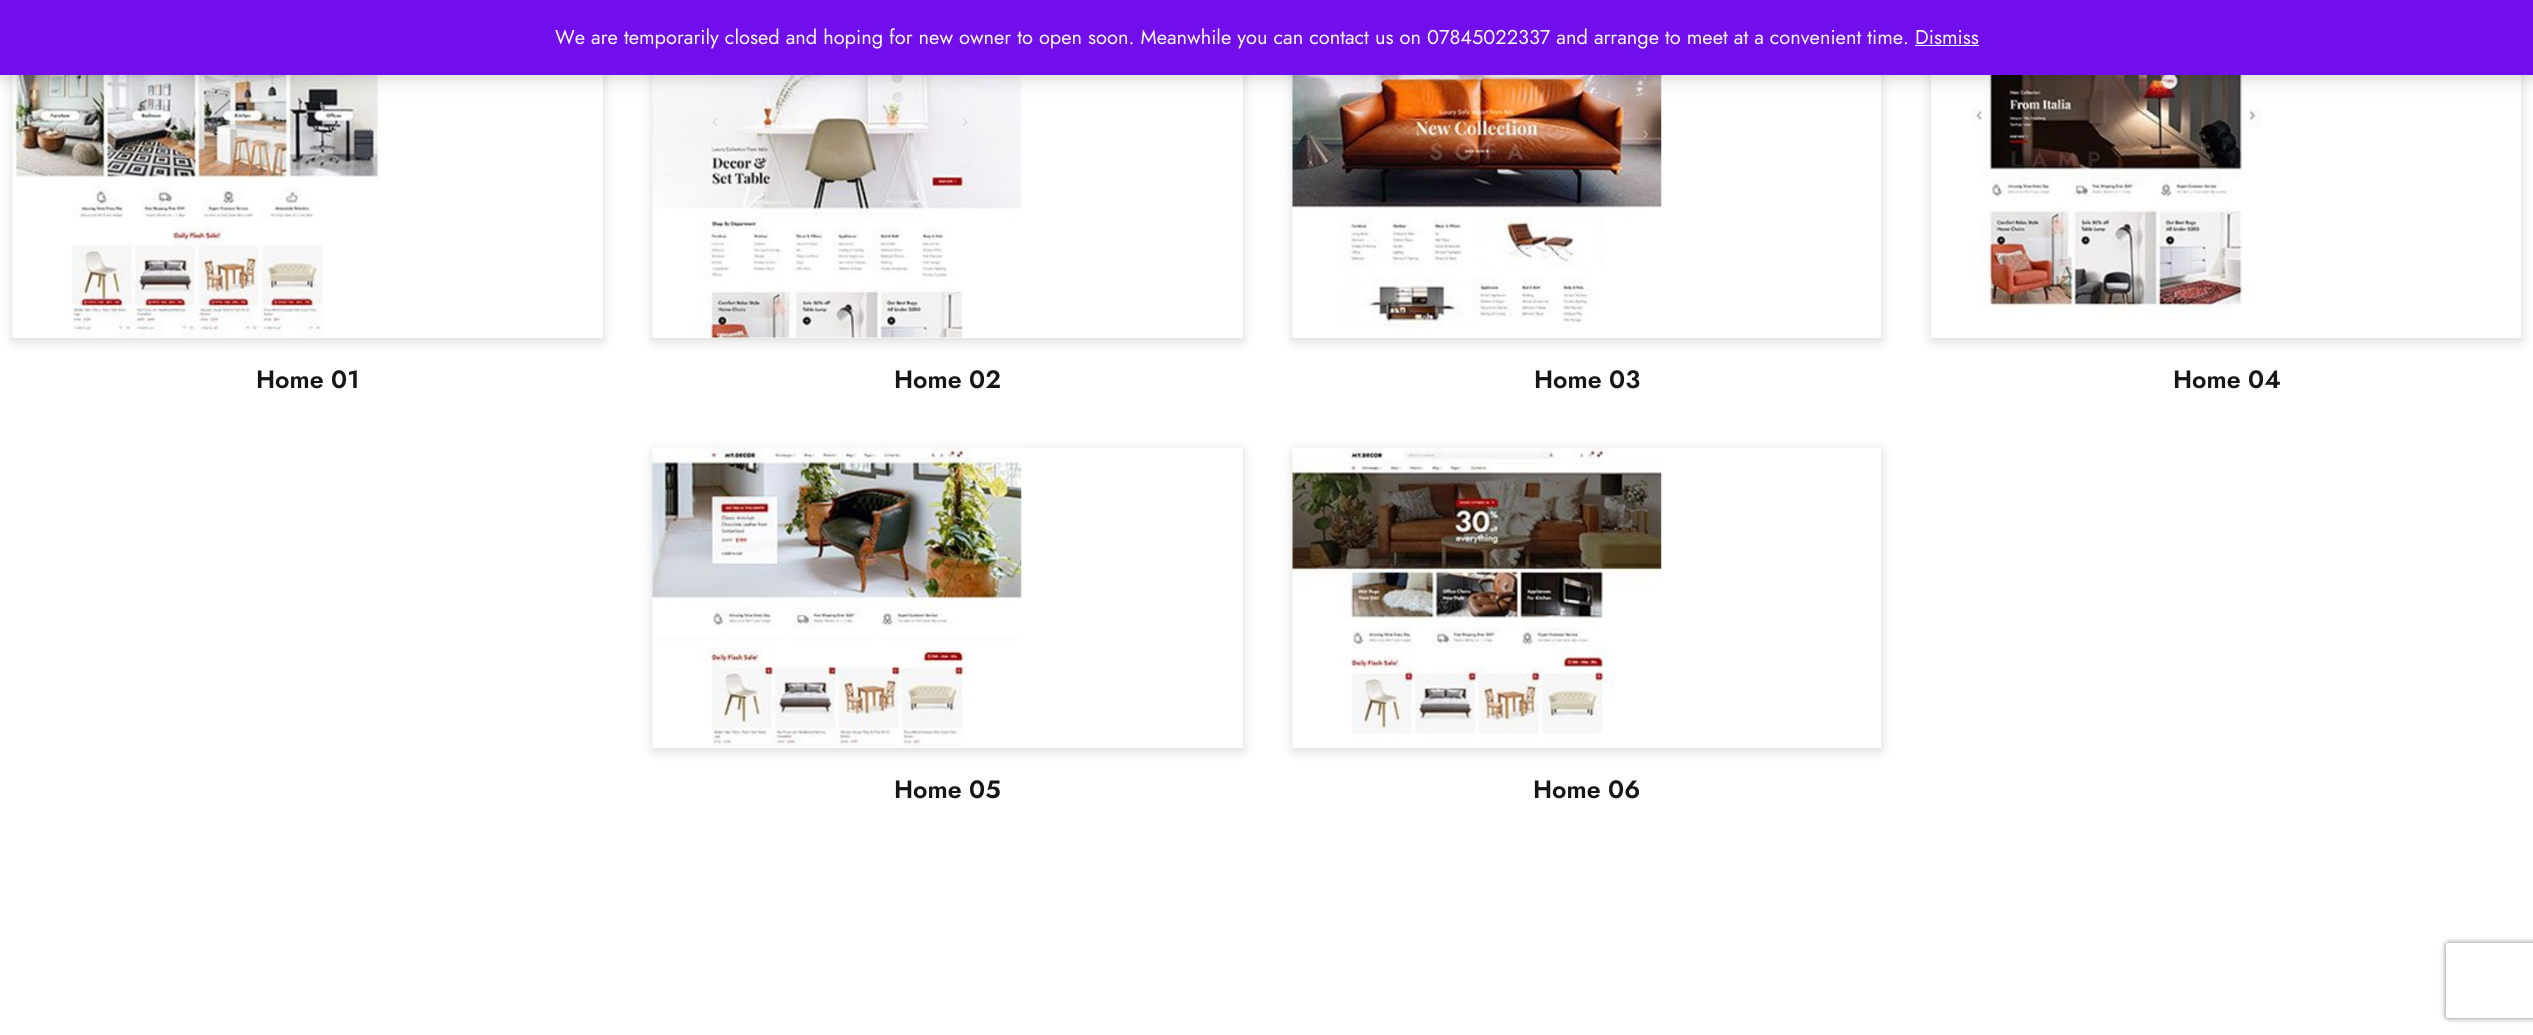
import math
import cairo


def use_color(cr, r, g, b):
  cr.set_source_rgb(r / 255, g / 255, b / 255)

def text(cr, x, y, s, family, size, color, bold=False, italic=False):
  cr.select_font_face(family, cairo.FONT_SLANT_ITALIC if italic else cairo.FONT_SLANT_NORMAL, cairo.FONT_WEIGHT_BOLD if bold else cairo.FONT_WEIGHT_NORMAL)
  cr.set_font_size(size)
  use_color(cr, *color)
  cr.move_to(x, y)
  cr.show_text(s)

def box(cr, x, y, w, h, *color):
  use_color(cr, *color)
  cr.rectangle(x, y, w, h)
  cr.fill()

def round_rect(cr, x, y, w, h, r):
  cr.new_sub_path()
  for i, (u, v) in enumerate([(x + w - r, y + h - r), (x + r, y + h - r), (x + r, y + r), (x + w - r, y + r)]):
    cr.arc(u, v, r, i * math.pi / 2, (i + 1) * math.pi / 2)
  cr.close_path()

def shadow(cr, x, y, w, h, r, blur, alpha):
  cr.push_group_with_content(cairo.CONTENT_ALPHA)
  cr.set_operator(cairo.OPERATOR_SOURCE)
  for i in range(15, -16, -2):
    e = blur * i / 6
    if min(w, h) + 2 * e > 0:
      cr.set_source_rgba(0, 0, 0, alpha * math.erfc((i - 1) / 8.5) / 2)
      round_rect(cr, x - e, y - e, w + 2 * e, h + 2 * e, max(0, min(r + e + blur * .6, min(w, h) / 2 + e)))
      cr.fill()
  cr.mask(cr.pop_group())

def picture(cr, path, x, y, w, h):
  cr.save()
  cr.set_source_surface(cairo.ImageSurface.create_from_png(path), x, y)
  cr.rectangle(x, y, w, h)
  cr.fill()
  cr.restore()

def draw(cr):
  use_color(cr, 255, 255, 255)
  cr.paint()
  cr.save()
  cr.set_fill_rule(cairo.FILL_RULE_EVEN_ODD)
  cr.new_path()
  cr.move_to(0, 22)
  cr.line_to(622, 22)
  cr.line_to(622, 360)
  cr.line_to(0, 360)
  cr.close_path()
  cr.move_to(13, 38)
  cr.line_to(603, 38)
  cr.line_to(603, 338)
  cr.line_to(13, 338)
  cr.close_path()
  cr.clip()
  use_color(cr, 0, 0, 0)
  shadow(cr, 13, 41, 590, 300, 0, 6, 0.15)
  cr.restore()
  picture(cr, "img_01.png", 12, 75, 369, 263)
  cr.save()
  cr.set_fill_rule(cairo.FILL_RULE_EVEN_ODD)
  cr.new_path()
  cr.move_to(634, 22)
  cr.line_to(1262, 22)
  cr.line_to(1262, 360)
  cr.line_to(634, 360)
  cr.close_path()
  cr.move_to(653, 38)
  cr.line_to(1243, 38)
  cr.line_to(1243, 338)
  cr.line_to(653, 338)
  cr.close_path()
  cr.clip()
  use_color(cr, 0, 0, 0)
  shadow(cr, 653, 41, 590, 300, 0, 6, 0.15)
  cr.restore()
  picture(cr, "img_02.png", 652, 75, 369, 263)
  cr.save()
  cr.set_fill_rule(cairo.FILL_RULE_EVEN_ODD)
  cr.new_path()
  cr.move_to(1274, 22)
  cr.line_to(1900, 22)
  cr.line_to(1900, 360)
  cr.line_to(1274, 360)
  cr.close_path()
  cr.move_to(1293, 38)
  cr.line_to(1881, 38)
  cr.line_to(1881, 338)
  cr.line_to(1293, 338)
  cr.close_path()
  cr.clip()
  use_color(cr, 0, 0, 0)
  shadow(cr, 1293, 41, 588, 300, 0, 6, 0.15)
  cr.restore()
  picture(cr, "img_04.png", 1292, 75, 370, 263)
  cr.save()
  cr.set_fill_rule(cairo.FILL_RULE_EVEN_ODD)
  cr.new_path()
  cr.move_to(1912, 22)
  cr.line_to(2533, 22)
  cr.line_to(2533, 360)
  cr.line_to(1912, 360)
  cr.close_path()
  cr.move_to(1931, 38)
  cr.line_to(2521, 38)
  cr.line_to(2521, 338)
  cr.line_to(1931, 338)
  cr.close_path()
  cr.clip()
  use_color(cr, 0, 0, 0)
  shadow(cr, 1931, 41, 590, 300, 0, 6, 0.15)
  cr.restore()
  picture(cr, "img_06.png", 1932, 75, 368, 263)
  use_color(cr, 0, 0, 0)
  shadow(cr, 0, 1, 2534, 75, 0, 10, 0.2)
  box(cr, 0, 0, 2533, 75, 114, 14, 236)
  box(cr, 1915, 45, 64, 1, 252, 251, 254)
  cr.save()
  cr.set_fill_rule(cairo.FILL_RULE_EVEN_ODD)
  cr.new_path()
  cr.move_to(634, 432)
  cr.line_to(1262, 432)
  cr.line_to(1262, 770)
  cr.line_to(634, 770)
  cr.close_path()
  cr.move_to(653, 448)
  cr.line_to(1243, 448)
  cr.line_to(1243, 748)
  cr.line_to(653, 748)
  cr.close_path()
  cr.clip()
  use_color(cr, 0, 0, 0)
  shadow(cr, 653, 451, 590, 300, 0, 6, 0.15)
  cr.restore()
  picture(cr, "img_03.png", 652, 447, 370, 301)
  cr.save()
  cr.set_fill_rule(cairo.FILL_RULE_EVEN_ODD)
  cr.new_path()
  cr.move_to(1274, 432)
  cr.line_to(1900, 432)
  cr.line_to(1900, 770)
  cr.line_to(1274, 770)
  cr.close_path()
  cr.move_to(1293, 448)
  cr.line_to(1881, 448)
  cr.line_to(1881, 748)
  cr.line_to(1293, 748)
  cr.close_path()
  cr.clip()
  use_color(cr, 0, 0, 0)
  shadow(cr, 1293, 451, 588, 300, 0, 6, 0.15)
  cr.restore()
  picture(cr, "img_05.png", 1292, 448, 370, 300)
  cr.save()
  cr.set_fill_rule(cairo.FILL_RULE_EVEN_ODD)
  cr.new_path()
  cr.move_to(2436, 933)
  cr.line_to(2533, 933)
  cr.line_to(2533, 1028)
  cr.line_to(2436, 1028)
  cr.close_path()
  cr.move_to(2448.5, 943)
  cr.line_to(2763.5, 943)
  cr.curve_to(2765, 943, 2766, 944, 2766, 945.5)
  cr.line_to(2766, 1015.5)
  cr.curve_to(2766, 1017, 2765, 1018, 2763.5, 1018)
  cr.line_to(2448.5, 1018)
  cr.curve_to(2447, 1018, 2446, 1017, 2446, 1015.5)
  cr.line_to(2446, 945.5)
  cr.curve_to(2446, 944, 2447, 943, 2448.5, 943)
  cr.close_path()
  cr.clip()
  use_color(cr, 128, 128, 128)
  shadow(cr, 2446, 943, 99, 75, 2.5, 3, 1)
  cr.restore()
  text(cr, 555, 44, "We are temporarily closed and hoping for new owner to open soon. Meanwhile you can contact us on 07845022337 and arrange to meet at a convenient time. Dismiss", "Jost", 20, (252, 251, 254))
  text(cr, 256, 388, "Home 01", "Jost SemiBold", 25, (22, 22, 22))
  text(cr, 894, 388, "Home 02", "Jost SemiBold", 25, (22, 22, 22))
  text(cr, 894, 798, "Home 05", "Jost SemiBold", 25, (22, 22, 22))
  text(cr, 1534, 388, "Home 03", "Jost SemiBold", 25, (22, 22, 22))
  text(cr, 1533, 798, "Home 06", "Jost SemiBold", 25, (22, 22, 22))
  text(cr, 2173, 388, "Home 04", "Jost SemiBold", 25, (22, 22, 22))


surface = cairo.ImageSurface(cairo.FORMAT_RGB24, 2533, 1035)
cr = cairo.Context(surface)
options = cairo.FontOptions()
options.set_hint_metrics(cairo.HINT_METRICS_OFF)
options.set_hint_style(cairo.HINT_STYLE_NONE)
cr.set_font_options(options)
cr.set_miter_limit(4)
draw(cr)
surface.write_to_png("out.png")
